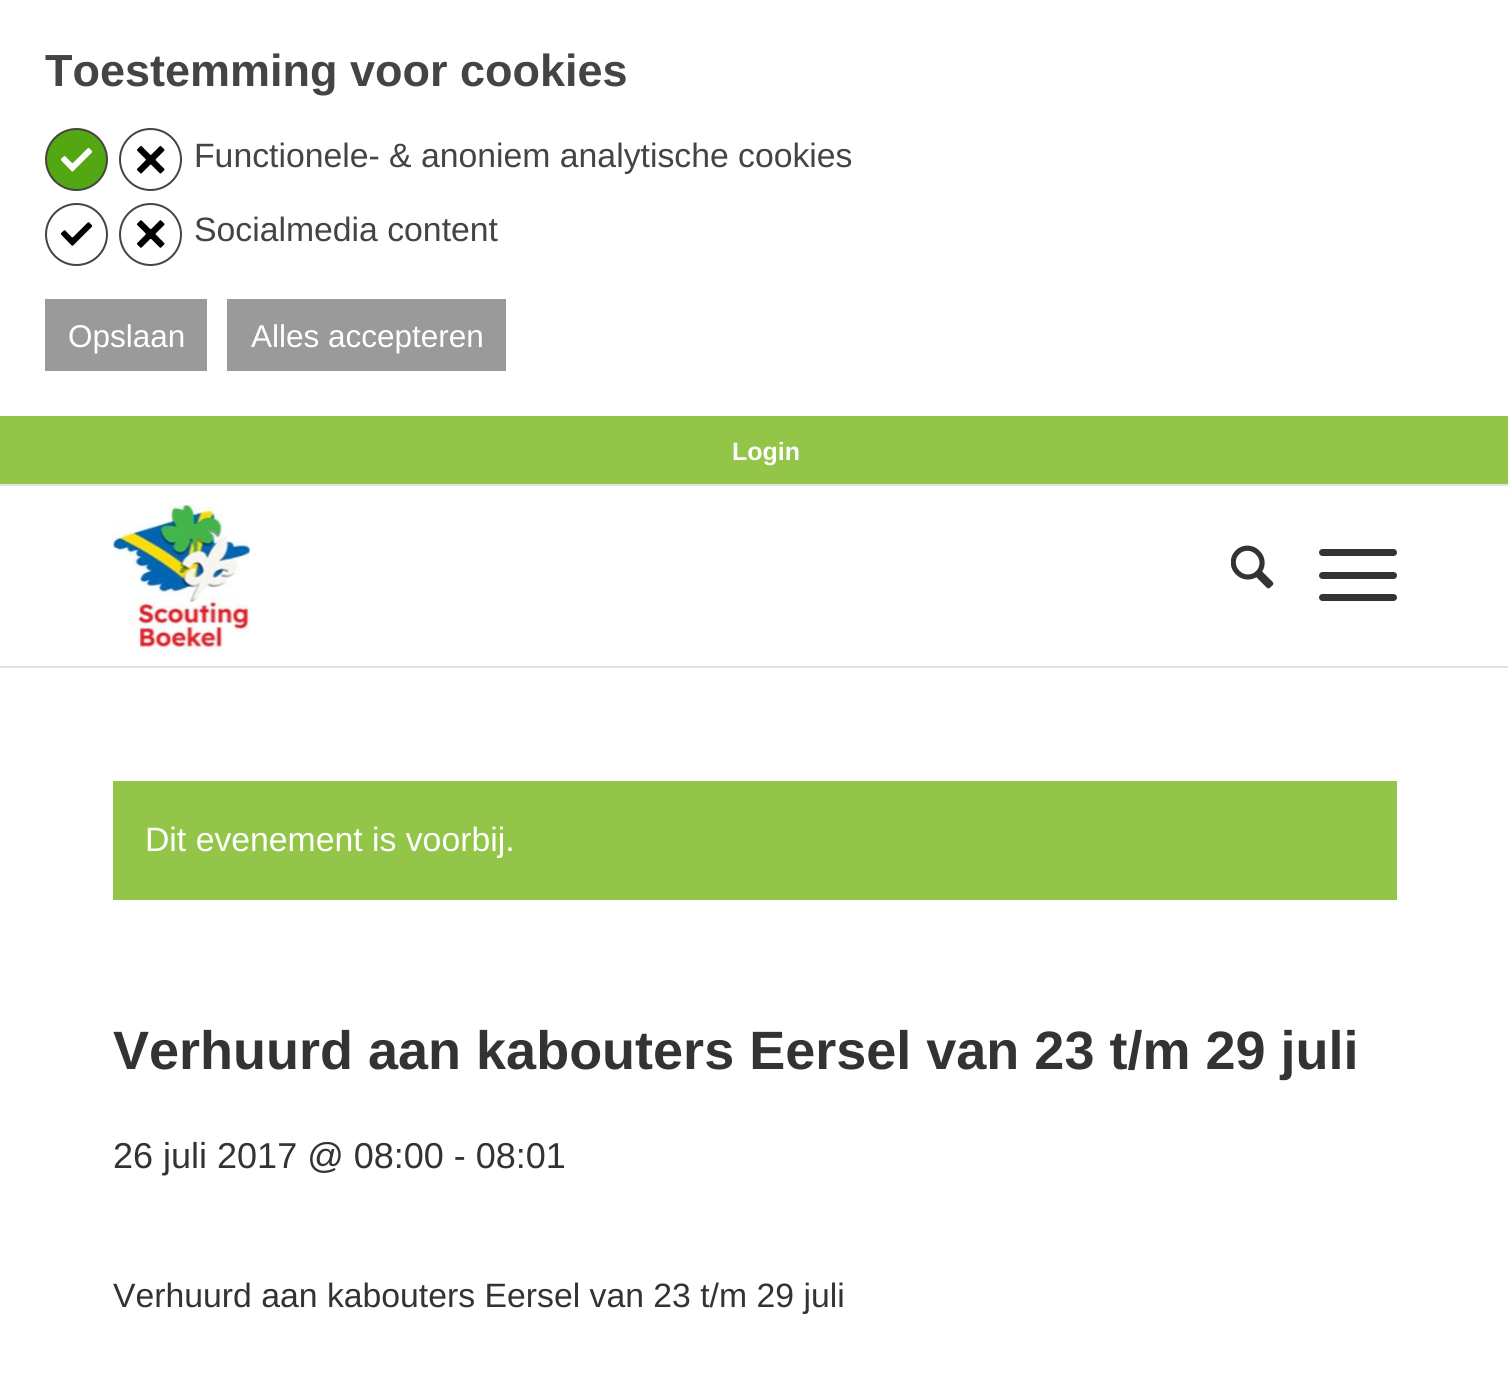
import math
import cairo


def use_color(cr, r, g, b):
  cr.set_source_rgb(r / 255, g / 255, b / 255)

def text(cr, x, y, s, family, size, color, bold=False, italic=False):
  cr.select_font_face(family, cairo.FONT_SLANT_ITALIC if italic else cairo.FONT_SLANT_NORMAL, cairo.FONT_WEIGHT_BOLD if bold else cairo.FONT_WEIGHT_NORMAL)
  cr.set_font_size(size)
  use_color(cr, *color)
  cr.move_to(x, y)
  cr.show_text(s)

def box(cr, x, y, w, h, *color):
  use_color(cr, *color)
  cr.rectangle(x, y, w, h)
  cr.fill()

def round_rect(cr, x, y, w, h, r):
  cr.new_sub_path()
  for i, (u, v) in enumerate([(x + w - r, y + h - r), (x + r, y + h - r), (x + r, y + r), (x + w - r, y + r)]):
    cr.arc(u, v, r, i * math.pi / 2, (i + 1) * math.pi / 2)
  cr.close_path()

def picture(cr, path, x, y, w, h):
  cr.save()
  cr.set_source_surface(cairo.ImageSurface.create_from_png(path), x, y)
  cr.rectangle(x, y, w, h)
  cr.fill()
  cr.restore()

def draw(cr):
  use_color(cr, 255, 255, 255)
  cr.paint()
  use_color(cr, 83, 167, 19)
  cr.arc(76.5, 159.5, 30.5, 0, 2 * math.pi)
  cr.fill_preserve()
  use_color(cr, 68, 68, 68)
  cr.stroke()
  picture(cr, "img_01.png", 61, 147, 31, 25)
  cr.arc(150.5, 159.5, 30.5, 0, 2 * math.pi)
  cr.stroke()
  picture(cr, "img_02.png", 136, 146, 29, 28)
  cr.arc(76.5, 234.5, 30.5, 0, 2 * math.pi)
  cr.stroke()
  picture(cr, "img_03.png", 61, 222, 31, 24)
  cr.arc(150.5, 234.5, 30.5, 0, 2 * math.pi)
  cr.stroke()
  picture(cr, "img_04.png", 136, 220, 29, 28)
  box(cr, 45, 299, 162, 72, 154, 154, 154)
  box(cr, 227, 299, 279, 72, 154, 154, 154)
  box(cr, 0, 416, 1508, 68, 147, 197, 72)
  box(cr, 0, 484, 1508, 2, 225, 225, 225)
  box(cr, 0, 666, 1508, 2, 225, 225, 225)
  picture(cr, "img_05.png", 112, 503, 138, 148)
  picture(cr, "img_06.png", 1231, 545, 43, 44)
  use_color(cr, 51, 51, 51)
  round_rect(cr, 1319, 572, 78, 7, 3.5)
  cr.fill()
  round_rect(cr, 1319, 549, 78, 7, 3.5)
  cr.fill()
  round_rect(cr, 1319, 594, 78, 7, 3.5)
  cr.fill()
  box(cr, 113, 781, 1284, 119, 147, 197, 72)
  text(cr, 45, 86, "Toestemming voor cookies", "Liberation Sans", 45, (68, 68, 68), bold=True)
  text(cr, 194, 167, "Functionele- & anoniem analytische cookies", "Liberation Sans", 33.75, (68, 68, 68))
  text(cr, 194, 241, "Socialmedia content", "Liberation Sans", 33.75, (68, 68, 68))
  text(cr, 68, 347, "Opslaan", "Liberation Sans", 31.5, (255, 255, 255))
  text(cr, 251, 347, "Alles accepteren", "Liberation Sans", 31.5, (255, 255, 255))
  text(cr, 732, 460, "Login", "Liberation Sans", 25, (255, 255, 255), bold=True)
  text(cr, 145, 851, "Dit evenement is voorbij.", "Liberation Sans", 33.75, (255, 255, 255))
  text(cr, 113, 1069, "Verhuurd aan kabouters Eersel van 23 t/m 29 juli", "Liberation Sans", 54, (51, 51, 51), bold=True)
  text(cr, 113, 1168, "26 juli 2017 @ 08:00 - 08:01", "Liberation Sans", 36, (51, 51, 51))
  text(cr, 113, 1307, "Verhuurd aan kabouters Eersel van 23 t/m 29 juli", "Liberation Sans", 33.75, (51, 51, 51))


surface = cairo.ImageSurface(cairo.FORMAT_RGB24, 1508, 1384)
cr = cairo.Context(surface)
options = cairo.FontOptions()
options.set_hint_metrics(cairo.HINT_METRICS_OFF)
options.set_hint_style(cairo.HINT_STYLE_NONE)
cr.set_font_options(options)
cr.set_miter_limit(4)
draw(cr)
surface.write_to_png("out.png")
